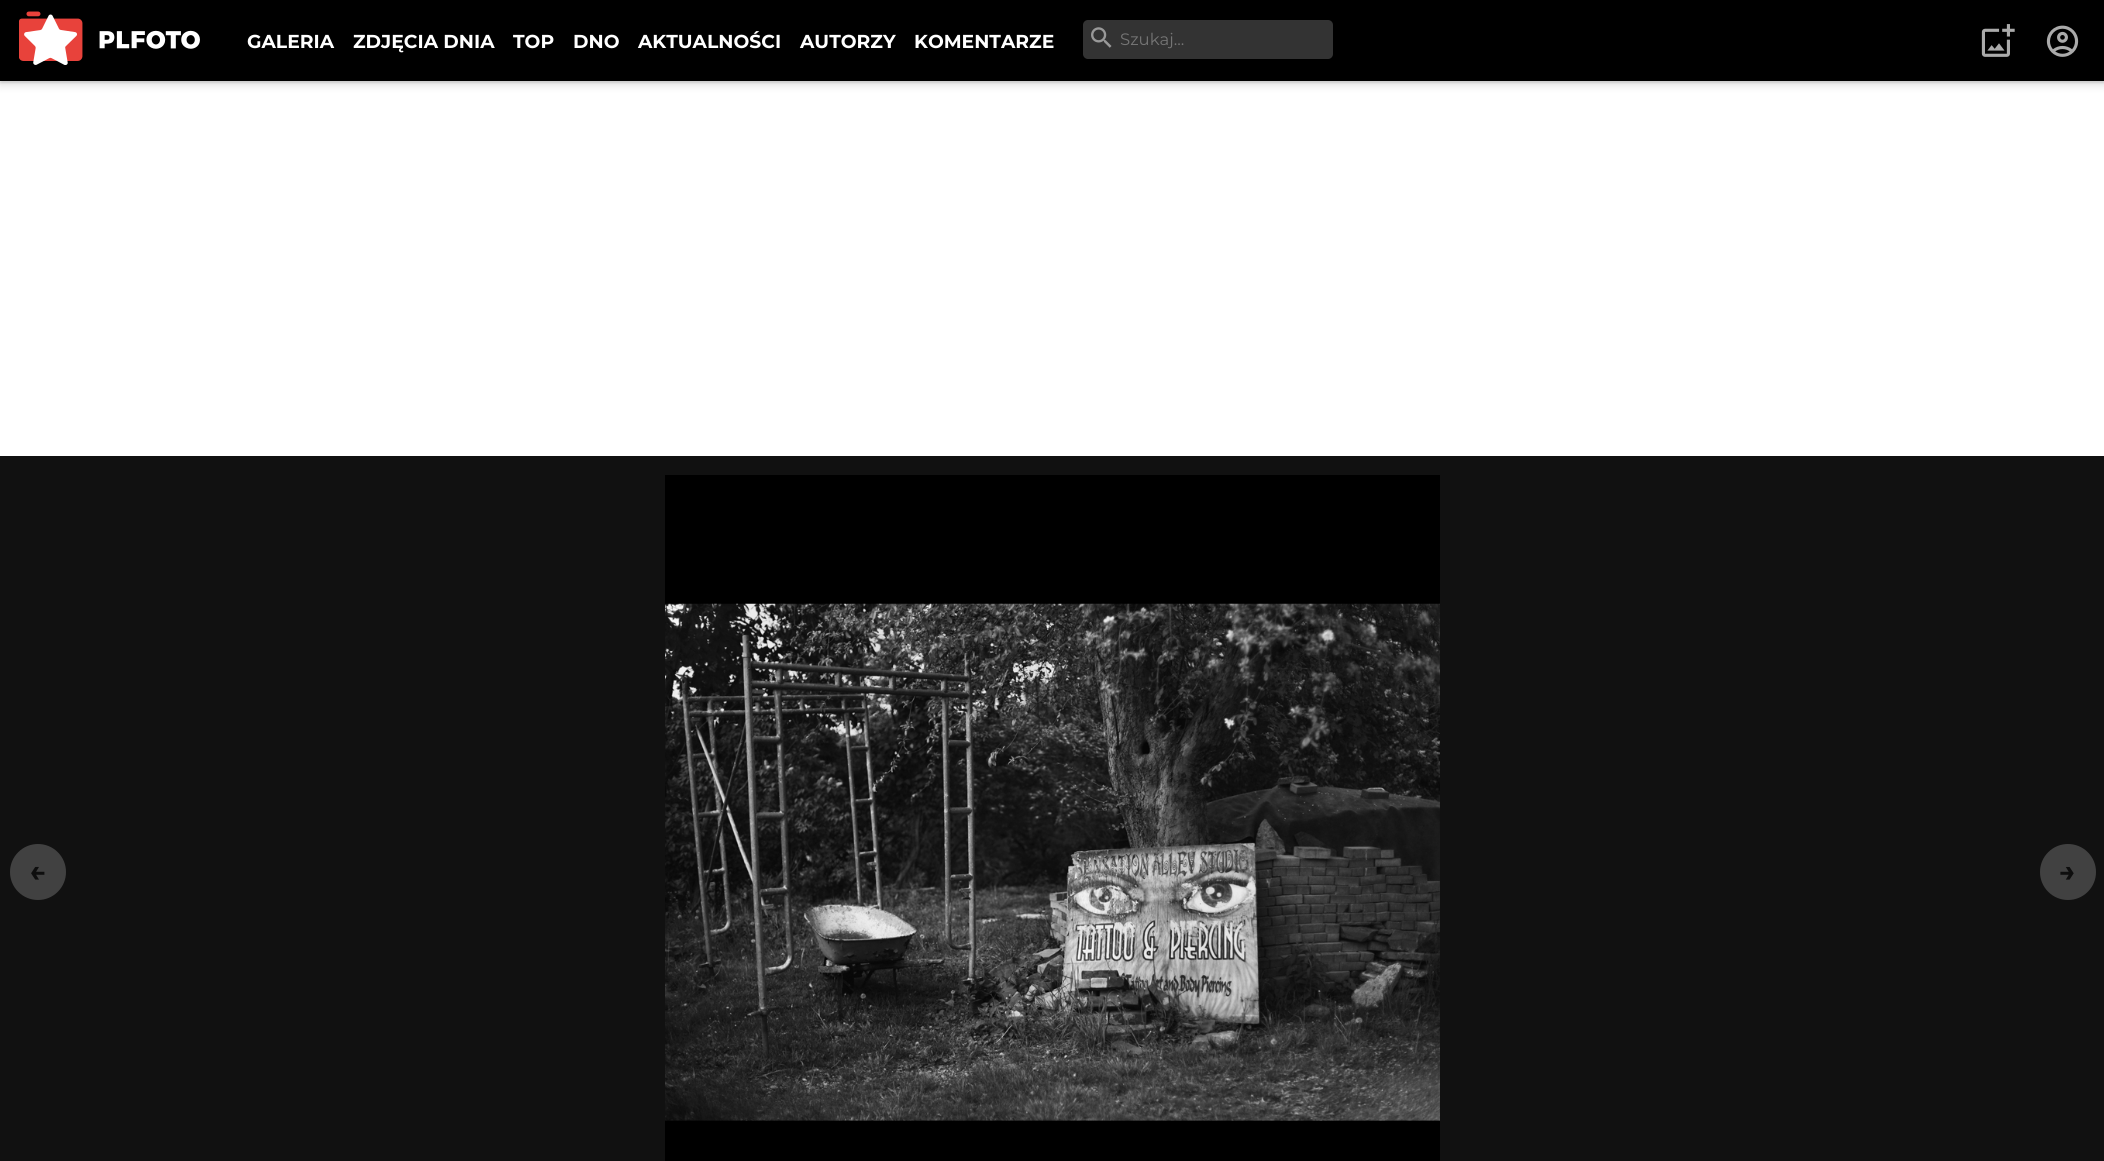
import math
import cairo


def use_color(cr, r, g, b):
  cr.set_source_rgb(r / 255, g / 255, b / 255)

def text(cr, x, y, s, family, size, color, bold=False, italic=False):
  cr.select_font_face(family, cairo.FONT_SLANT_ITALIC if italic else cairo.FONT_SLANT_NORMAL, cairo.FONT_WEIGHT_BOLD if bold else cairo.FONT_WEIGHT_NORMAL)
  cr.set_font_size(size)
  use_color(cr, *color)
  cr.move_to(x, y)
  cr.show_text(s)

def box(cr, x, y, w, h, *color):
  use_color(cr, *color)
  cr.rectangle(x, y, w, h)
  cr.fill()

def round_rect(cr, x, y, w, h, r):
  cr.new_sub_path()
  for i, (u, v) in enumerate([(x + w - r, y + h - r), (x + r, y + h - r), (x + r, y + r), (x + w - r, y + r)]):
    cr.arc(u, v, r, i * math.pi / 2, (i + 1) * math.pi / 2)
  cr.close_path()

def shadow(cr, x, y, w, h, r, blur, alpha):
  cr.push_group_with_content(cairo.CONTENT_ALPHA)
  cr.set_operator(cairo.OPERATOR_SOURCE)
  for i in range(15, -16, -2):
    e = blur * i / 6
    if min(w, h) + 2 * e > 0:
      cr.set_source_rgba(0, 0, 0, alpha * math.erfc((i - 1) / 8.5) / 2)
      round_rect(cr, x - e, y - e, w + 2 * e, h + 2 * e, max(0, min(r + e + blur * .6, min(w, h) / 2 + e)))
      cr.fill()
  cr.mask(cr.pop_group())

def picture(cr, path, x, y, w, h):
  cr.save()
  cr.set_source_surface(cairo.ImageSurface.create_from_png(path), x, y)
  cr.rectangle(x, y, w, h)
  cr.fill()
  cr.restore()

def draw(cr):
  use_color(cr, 255, 255, 255)
  cr.paint()
  use_color(cr, 0, 0, 0)
  shadow(cr, 0, 1, 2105, 82, 0, 1, 0.11)
  shadow(cr, 0, 4, 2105, 81, 0, 4.5, 0.13)
  box(cr, 0, 0, 2104, 81, 0, 0, 0)
  picture(cr, "img_01.png", 19, 11, 181, 54)
  use_color(cr, 51, 51, 51)
  round_rect(cr, 1083, 20, 250, 39, 5)
  cr.fill()
  picture(cr, "img_02.png", 1091, 27, 21, 21)
  picture(cr, "img_03.png", 1981, 24, 34, 33)
  picture(cr, "img_04.png", 2046, 25, 33, 32)
  box(cr, 0, 456, 2104, 705, 17, 17, 17)
  use_color(cr, 65, 65, 65)
  cr.arc(38, 872, 28, 0, 2 * math.pi)
  cr.fill()
  picture(cr, "img_05.png", 665, 475, 775, 686)
  cr.arc(2068, 872, 28, 0, 2 * math.pi)
  cr.fill()
  text(cr, 247, 48, "GALERIA", "Montserrat", 18.75, (255, 255, 255), bold=True)
  text(cr, 353, 48, "ZDJĘCIA DNIA", "Montserrat", 18.75, (255, 255, 255), bold=True)
  text(cr, 513, 48, "TOP", "Montserrat", 18.75, (255, 255, 255), bold=True)
  text(cr, 573, 48, "DNO", "Montserrat", 18.75, (255, 255, 255), bold=True)
  text(cr, 638, 48, "AKTUALNOŚCI", "Montserrat", 18.75, (255, 255, 255), bold=True)
  text(cr, 800, 48, "AUTORZY", "Montserrat", 18.75, (255, 255, 255), bold=True)
  text(cr, 914, 48, "KOMENTARZE", "Montserrat", 18.75, (255, 255, 255), bold=True)
  text(cr, 1120, 45, "Szukaj...", "Montserrat", 16.5, (117, 117, 117))
  text(cr, 29, 881, "←", "Montserrat", 28, (14, 14, 14), bold=True)
  text(cr, 2059, 881, "→", "Montserrat", 28, (14, 14, 14), bold=True)


surface = cairo.ImageSurface(cairo.FORMAT_RGB24, 2104, 1161)
cr = cairo.Context(surface)
options = cairo.FontOptions()
options.set_hint_metrics(cairo.HINT_METRICS_OFF)
options.set_hint_style(cairo.HINT_STYLE_NONE)
cr.set_font_options(options)
cr.set_miter_limit(4)
draw(cr)
surface.write_to_png("out.png")
